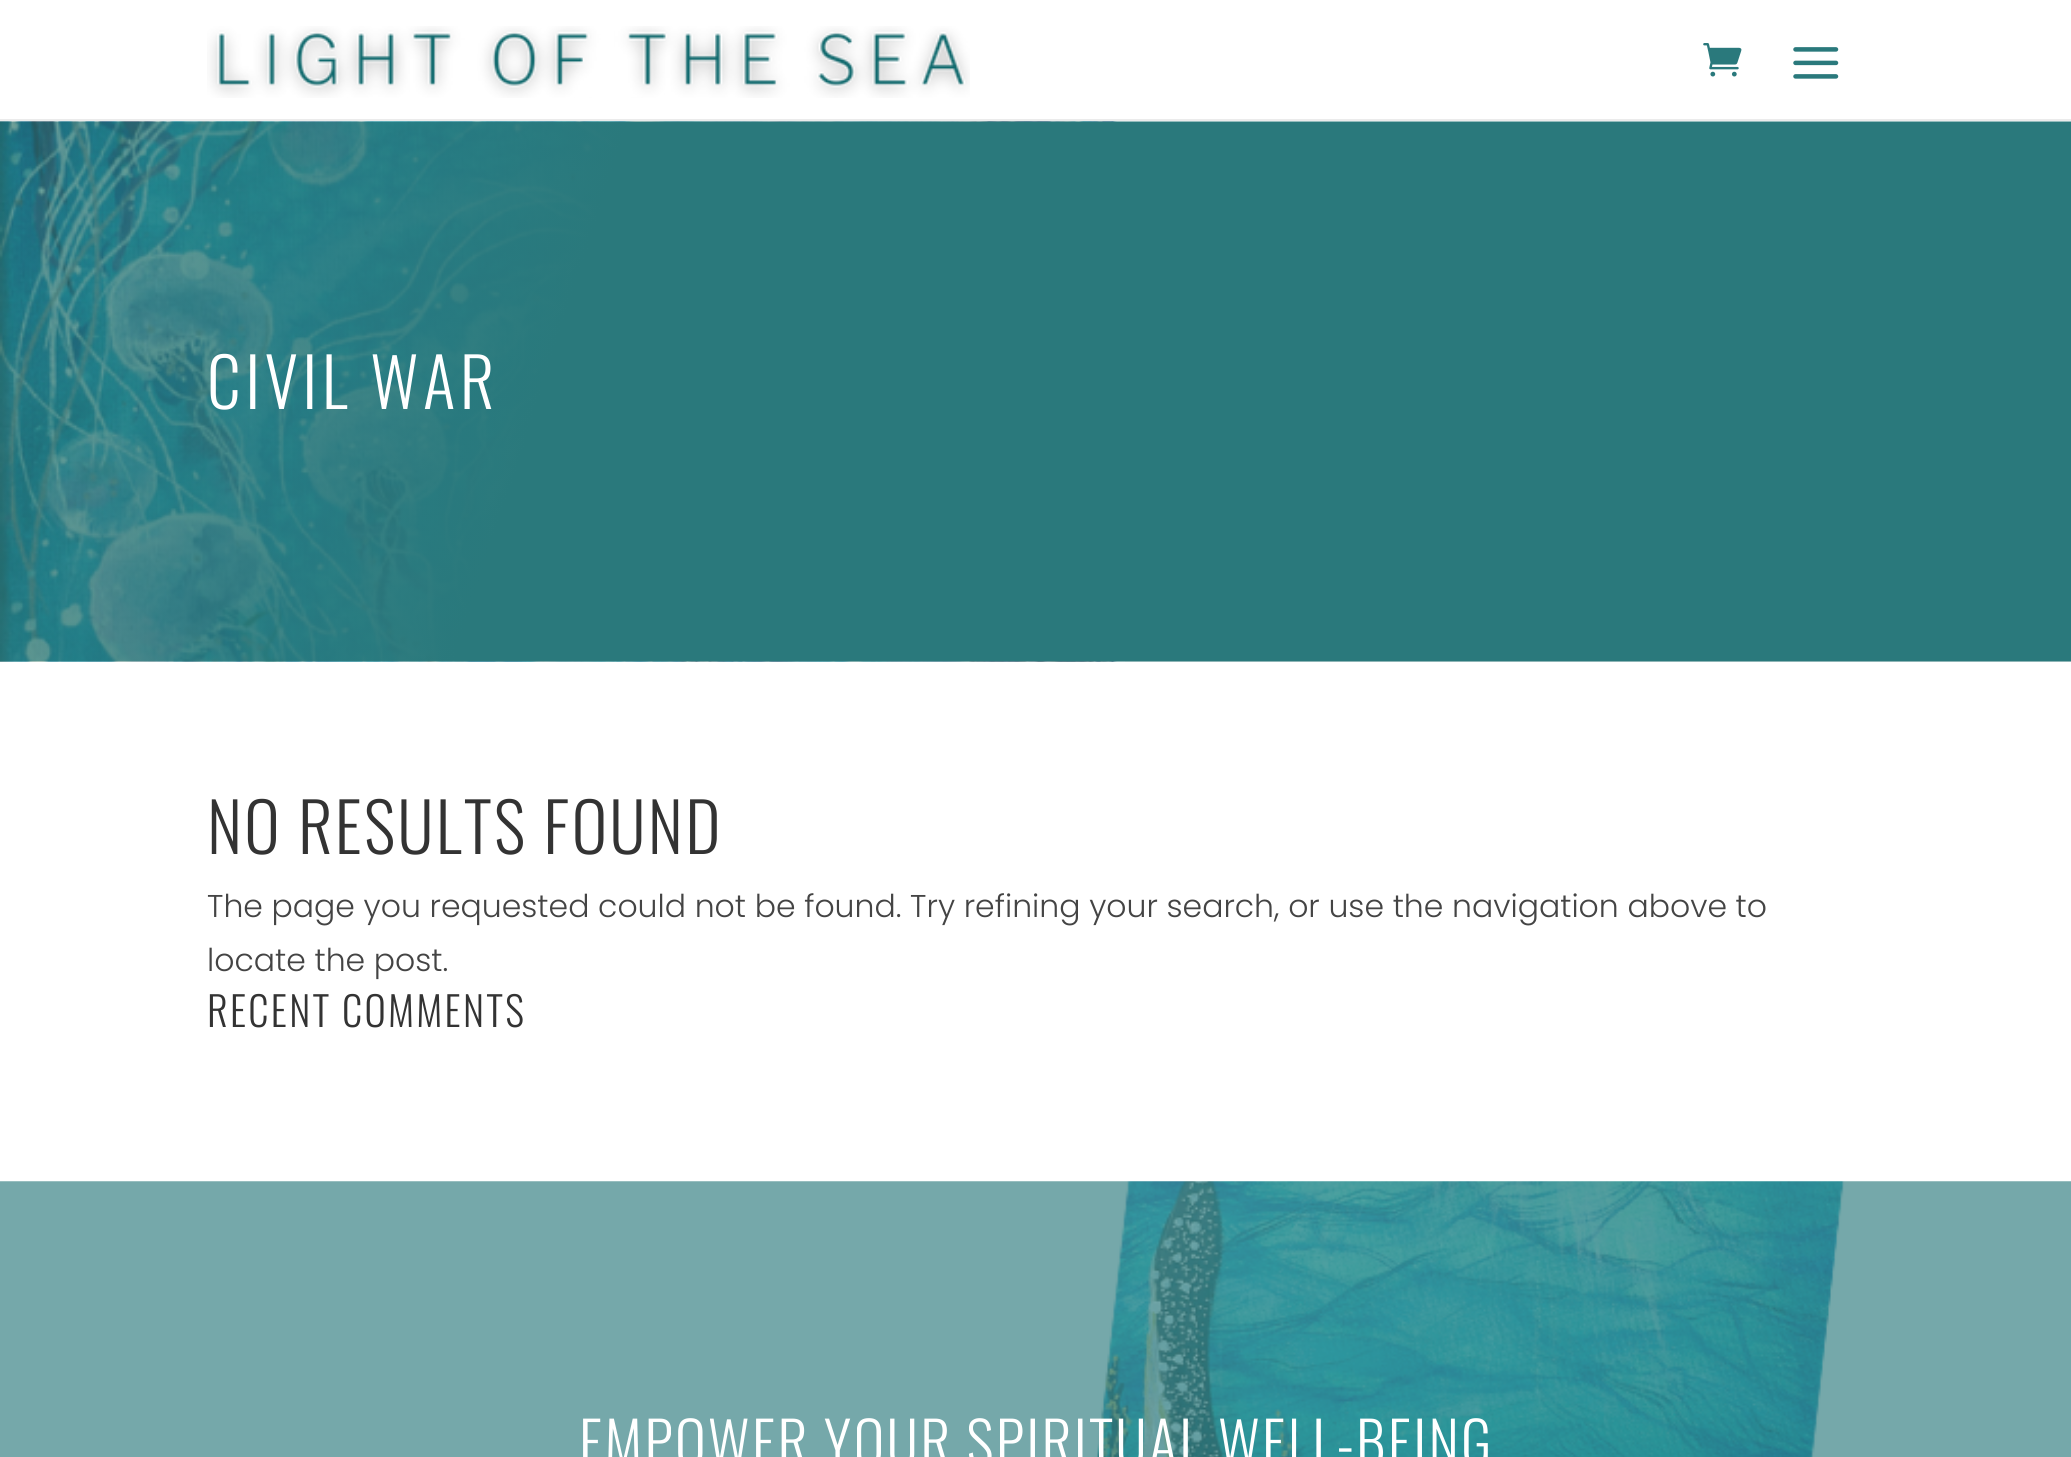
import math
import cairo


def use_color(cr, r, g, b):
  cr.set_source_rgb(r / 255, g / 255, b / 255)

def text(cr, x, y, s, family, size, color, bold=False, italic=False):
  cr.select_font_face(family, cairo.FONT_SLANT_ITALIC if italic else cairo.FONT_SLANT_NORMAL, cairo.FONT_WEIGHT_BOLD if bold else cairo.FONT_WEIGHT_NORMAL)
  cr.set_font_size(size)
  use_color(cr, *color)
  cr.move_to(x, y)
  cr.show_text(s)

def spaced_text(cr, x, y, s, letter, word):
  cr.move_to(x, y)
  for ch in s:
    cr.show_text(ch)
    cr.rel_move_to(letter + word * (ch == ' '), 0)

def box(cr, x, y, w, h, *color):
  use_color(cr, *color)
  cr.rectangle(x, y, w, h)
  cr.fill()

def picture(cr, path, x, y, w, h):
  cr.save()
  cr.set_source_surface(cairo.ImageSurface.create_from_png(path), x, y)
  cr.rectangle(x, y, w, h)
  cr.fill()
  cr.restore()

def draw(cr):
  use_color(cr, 255, 255, 255)
  cr.paint()
  box(cr, 0, 119, 2071, 2, 235, 235, 235)
  picture(cr, "img_01.png", 207, 26, 763, 72)
  picture(cr, "img_02.png", 1703, 43, 39, 34)
  picture(cr, "img_03.png", 1793, 47, 46, 32)
  box(cr, 0, 661, 2071, 1, 238, 238, 238)
  picture(cr, "img_04.png", 0, 121, 2071, 541)
  picture(cr, "img_05.png", 0, 1181, 2071, 276)
  cr.select_font_face("Oswald Light")
  cr.set_font_size(67.5)
  use_color(cr, 255, 255, 255)
  spaced_text(cr, 207, 409, "CIVIL WAR", 4.5, 0)
  use_color(cr, 51, 51, 51)
  spaced_text(cr, 207, 854, "NO RESULTS FOUND", 2.25, 0)
  text(cr, 207, 917, "The page you requested could not be found. Try refining your search, or use the navigation above to", "Poppins Light", 31.5, (68, 68, 68))
  text(cr, 207, 971, "locate the post.", "Poppins Light", 31.5, (68, 68, 68))
  cr.select_font_face("Oswald Light")
  cr.set_font_size(40.5)
  use_color(cr, 51, 51, 51)
  spaced_text(cr, 207, 1027, "RECENT COMMENTS", 2.25, 0)
  cr.set_font_size(58.5)
  use_color(cr, 255, 255, 255)
  spaced_text(cr, 579, 1466, "EMPOWER YOUR SPIRITUAL WELL-BEING", 2.25, 0)


surface = cairo.ImageSurface(cairo.FORMAT_RGB24, 2071, 1457)
cr = cairo.Context(surface)
options = cairo.FontOptions()
options.set_hint_metrics(cairo.HINT_METRICS_OFF)
options.set_hint_style(cairo.HINT_STYLE_NONE)
cr.set_font_options(options)
cr.set_miter_limit(4)
draw(cr)
surface.write_to_png("out.png")
